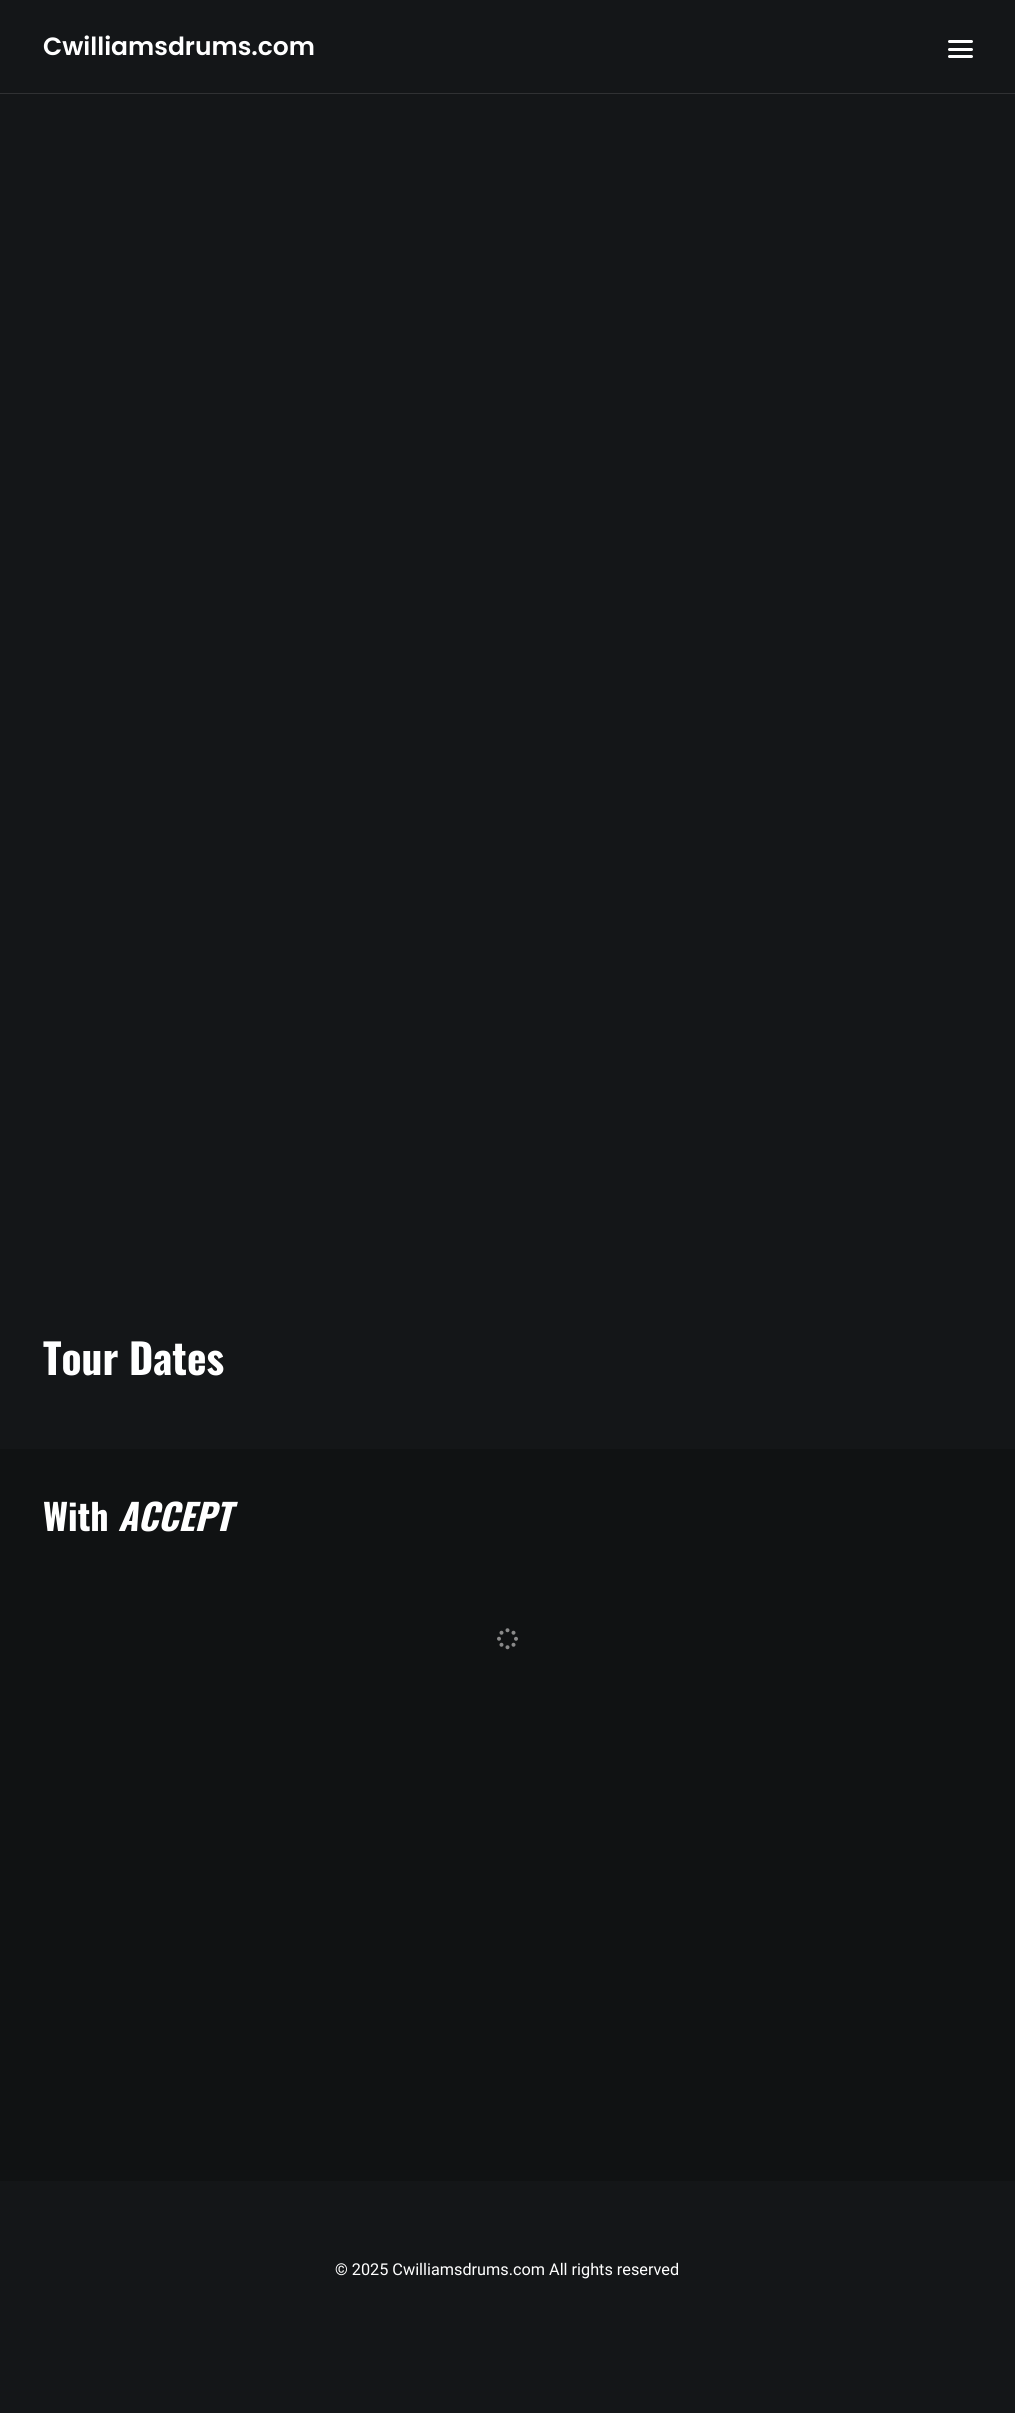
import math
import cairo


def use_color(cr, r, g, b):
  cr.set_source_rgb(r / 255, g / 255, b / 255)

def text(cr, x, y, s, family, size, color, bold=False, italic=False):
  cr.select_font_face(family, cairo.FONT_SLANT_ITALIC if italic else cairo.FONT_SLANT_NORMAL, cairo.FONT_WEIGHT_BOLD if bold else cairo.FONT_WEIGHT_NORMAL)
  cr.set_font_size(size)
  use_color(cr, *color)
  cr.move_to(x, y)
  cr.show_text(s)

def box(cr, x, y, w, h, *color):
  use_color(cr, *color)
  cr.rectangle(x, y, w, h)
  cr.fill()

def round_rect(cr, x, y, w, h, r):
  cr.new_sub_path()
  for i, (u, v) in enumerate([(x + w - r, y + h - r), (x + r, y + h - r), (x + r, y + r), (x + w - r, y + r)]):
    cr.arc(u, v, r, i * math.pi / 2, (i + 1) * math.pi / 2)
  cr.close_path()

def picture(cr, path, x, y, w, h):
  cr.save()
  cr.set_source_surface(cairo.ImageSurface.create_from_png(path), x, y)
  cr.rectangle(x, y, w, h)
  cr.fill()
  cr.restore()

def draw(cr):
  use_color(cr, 16, 18, 19)
  cr.paint()
  box(cr, 0, 0, 1015, 93, 20, 22, 24)
  box(cr, 0, 93, 1015, 1, 48, 49, 51)
  use_color(cr, 255, 255, 255)
  round_rect(cr, 948, 48, 25, 3, 1.5)
  cr.fill()
  round_rect(cr, 948, 40, 25, 3, 1.5)
  cr.fill()
  round_rect(cr, 948, 55, 25, 3, 1.5)
  cr.fill()
  box(cr, 0, 94, 1015, 1355, 20, 22, 24)
  picture(cr, "img_01.png", 497, 1628, 21, 22)
  box(cr, 0, 2181, 1015, 232, 20, 22, 24)
  text(cr, 43, 55, "Cwilliamsdrums.com", "Poppins SemiBold", 25, (255, 255, 255))
  text(cr, 43, 1375, "Tour Dates", "Oswald", 41.5, (255, 255, 255), bold=True)
  text(cr, 43, 1531, "With", "Oswald", 36, (255, 255, 255), bold=True)
  text(cr, 118, 1531, "ACCEPT", "Oswald", 36, (255, 255, 255), bold=True, italic=True)
  text(cr, 335, 2275, "© 2025 Cwilliamsdrums.com All rights reserved", "Roboto", 16.25, (255, 255, 255))


surface = cairo.ImageSurface(cairo.FORMAT_RGB24, 1015, 2413)
cr = cairo.Context(surface)
options = cairo.FontOptions()
options.set_hint_metrics(cairo.HINT_METRICS_OFF)
options.set_hint_style(cairo.HINT_STYLE_NONE)
cr.set_font_options(options)
cr.set_miter_limit(4)
draw(cr)
surface.write_to_png("out.png")
